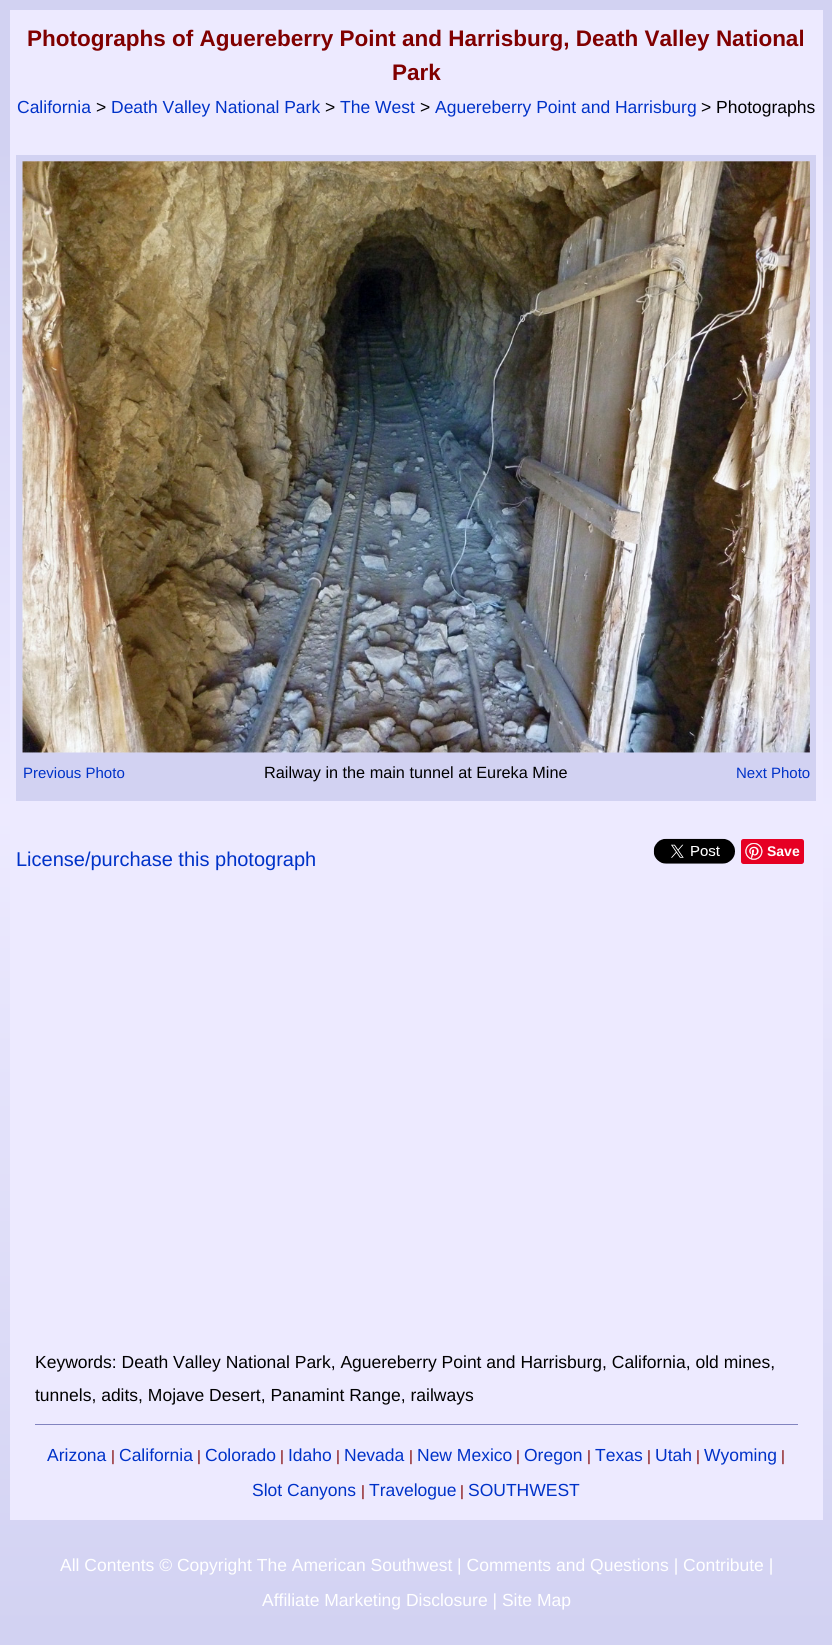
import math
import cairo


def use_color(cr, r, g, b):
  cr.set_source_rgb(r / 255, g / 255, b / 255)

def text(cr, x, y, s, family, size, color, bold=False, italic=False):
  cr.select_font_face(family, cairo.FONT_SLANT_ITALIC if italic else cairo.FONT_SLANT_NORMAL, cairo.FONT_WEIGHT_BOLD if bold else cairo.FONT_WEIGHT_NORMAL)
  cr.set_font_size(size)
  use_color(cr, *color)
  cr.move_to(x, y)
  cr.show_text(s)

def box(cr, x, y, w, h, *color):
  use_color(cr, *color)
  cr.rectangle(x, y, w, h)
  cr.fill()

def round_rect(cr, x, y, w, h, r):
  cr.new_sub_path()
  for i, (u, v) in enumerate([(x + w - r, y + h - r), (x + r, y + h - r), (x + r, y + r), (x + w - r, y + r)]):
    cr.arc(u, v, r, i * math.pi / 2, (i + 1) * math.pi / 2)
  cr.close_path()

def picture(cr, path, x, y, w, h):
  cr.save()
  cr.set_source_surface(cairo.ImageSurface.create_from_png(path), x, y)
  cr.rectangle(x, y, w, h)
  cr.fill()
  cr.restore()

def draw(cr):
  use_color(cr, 255, 255, 255)
  cr.paint()
  gradient = cairo.LinearGradient(416, 0, 416, 1628)
  gradient.add_color_stop_rgba(0.09, 0.824, 0.824, 0.949, 1)
  gradient.add_color_stop_rgba(0.5, 0.929, 0.918, 1, 1)
  gradient.add_color_stop_rgba(1, 0.824, 0.824, 0.949, 1)
  cr.set_source(gradient)
  cr.rectangle(0, 0, 832, 1628)
  cr.fill()
  gradient = cairo.LinearGradient(416, 1628, 416, 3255)
  gradient.add_color_stop_rgba(0.09, 0.824, 0.824, 0.949, 1)
  gradient.add_color_stop_rgba(0.5, 0.929, 0.918, 1, 1)
  gradient.add_color_stop_rgba(1, 0.824, 0.824, 0.949, 1)
  cr.set_source(gradient)
  cr.rectangle(0, 1628, 832, 17)
  cr.fill()
  box(cr, 10, 10, 813, 1510, 237, 234, 255)
  box(cr, 16, 155, 800, 646, 210, 210, 242)
  picture(cr, "img_01.png", 22, 161, 788, 592)
  picture(cr, "img_02.png", 653, 838, 82, 26)
  use_color(cr, 230, 0, 35)
  round_rect(cr, 741, 839, 63, 25, 2.5)
  cr.fill()
  picture(cr, "img_03.png", 745, 843, 18, 17)
  box(cr, 35, 1424, 763, 1, 130, 132, 192)
  text(cr, 27, 46, "Photographs of Aguereberry Point and Harrisburg, Death Valley National", "Liberation Sans", 22.5, (128, 0, 0), bold=True)
  text(cr, 392, 80, "Park", "Liberation Sans", 22.5, (128, 0, 0), bold=True)
  text(cr, 17, 113, "California", "Liberation Sans", 17.5, (0, 50, 200))
  text(cr, 96, 113, ">", "Liberation Sans", 17.5, (0, 0, 0))
  text(cr, 111, 113, "Death Valley National Park", "Liberation Sans", 17.5, (0, 50, 200))
  text(cr, 325, 113, ">", "Liberation Sans", 17.5, (0, 0, 0))
  text(cr, 340, 113, "The West", "Liberation Sans", 17.5, (0, 50, 200))
  text(cr, 420, 113, ">", "Liberation Sans", 17.5, (0, 0, 0))
  text(cr, 435, 113, "Aguereberry Point and Harrisburg", "Liberation Sans", 17.5, (0, 50, 200))
  text(cr, 701, 113, "> Photographs", "Liberation Sans", 17.5, (0, 0, 0))
  text(cr, 23, 778, "Previous Photo", "Liberation Sans", 15, (0, 50, 200))
  text(cr, 264, 778, "Railway in the main tunnel at Eureka Mine", "Liberation Sans", 16.25, (0, 0, 0))
  text(cr, 736, 778, "Next Photo", "Liberation Sans", 15, (0, 50, 200))
  text(cr, 16, 866, "License/purchase this photograph", "Liberation Sans", 20, (0, 50, 200))
  text(cr, 767, 856, "Save", "Liberation Sans", 14, (255, 255, 255), bold=True)
  text(cr, 35, 1368, "Keywords: Death Valley National Park, Aguereberry Point and Harrisburg, California, old mines,", "Liberation Sans", 17.5, (0, 0, 0))
  text(cr, 35, 1401, "tunnels, adits, Mojave Desert, Panamint Range, railways", "Liberation Sans", 17.5, (0, 0, 0))
  text(cr, 47, 1461, "Arizona", "Liberation Sans", 17.5, (0, 50, 200))
  text(cr, 111, 1461, "|", "Liberation Sans", 15, (128, 0, 0))
  text(cr, 119, 1461, "California", "Liberation Sans", 17.5, (0, 50, 200))
  text(cr, 197, 1461, "|", "Liberation Sans", 15, (128, 0, 0))
  text(cr, 205, 1461, "Colorado", "Liberation Sans", 17.5, (0, 50, 200))
  text(cr, 280, 1461, "|", "Liberation Sans", 15, (128, 0, 0))
  text(cr, 288, 1461, "Idaho", "Liberation Sans", 17.5, (0, 50, 200))
  text(cr, 336, 1461, "|", "Liberation Sans", 15, (128, 0, 0))
  text(cr, 344, 1461, "Nevada", "Liberation Sans", 17.5, (0, 50, 200))
  text(cr, 409, 1461, "|", "Liberation Sans", 15, (128, 0, 0))
  text(cr, 417, 1461, "New Mexico", "Liberation Sans", 17.5, (0, 50, 200))
  text(cr, 516, 1461, "|", "Liberation Sans", 15, (128, 0, 0))
  text(cr, 524, 1461, "Oregon", "Liberation Sans", 17.5, (0, 50, 200))
  text(cr, 587, 1461, "|", "Liberation Sans", 15, (128, 0, 0))
  text(cr, 595, 1461, "Texas", "Liberation Sans", 17.5, (0, 50, 200))
  text(cr, 647, 1461, "|", "Liberation Sans", 15, (128, 0, 0))
  text(cr, 655, 1461, "Utah", "Liberation Sans", 17.5, (0, 50, 200))
  text(cr, 696, 1461, "|", "Liberation Sans", 15, (128, 0, 0))
  text(cr, 704, 1461, "Wyoming", "Liberation Sans", 17.5, (0, 50, 200))
  text(cr, 781, 1461, "|", "Liberation Sans", 15, (128, 0, 0))
  text(cr, 252, 1496, "Slot Canyons", "Liberation Sans", 17.5, (0, 50, 200))
  text(cr, 361, 1496, "|", "Liberation Sans", 15, (128, 0, 0))
  text(cr, 369, 1496, "Travelogue", "Liberation Sans", 17.5, (0, 50, 200))
  text(cr, 460, 1496, "|", "Liberation Sans", 15, (128, 0, 0))
  text(cr, 468, 1496, "SOUTHWEST", "Liberation Sans", 17.5, (0, 50, 200))
  text(cr, 60, 1571, "All Contents © Copyright The American Southwest | Comments and Questions | Contribute |", "Liberation Sans", 17.5, (255, 255, 255))
  text(cr, 262, 1606, "Affiliate Marketing Disclosure | Site Map", "Liberation Sans", 17.5, (255, 255, 255))


surface = cairo.ImageSurface(cairo.FORMAT_RGB24, 832, 1645)
cr = cairo.Context(surface)
options = cairo.FontOptions()
options.set_hint_metrics(cairo.HINT_METRICS_OFF)
options.set_hint_style(cairo.HINT_STYLE_NONE)
cr.set_font_options(options)
cr.set_miter_limit(4)
draw(cr)
surface.write_to_png("out.png")
